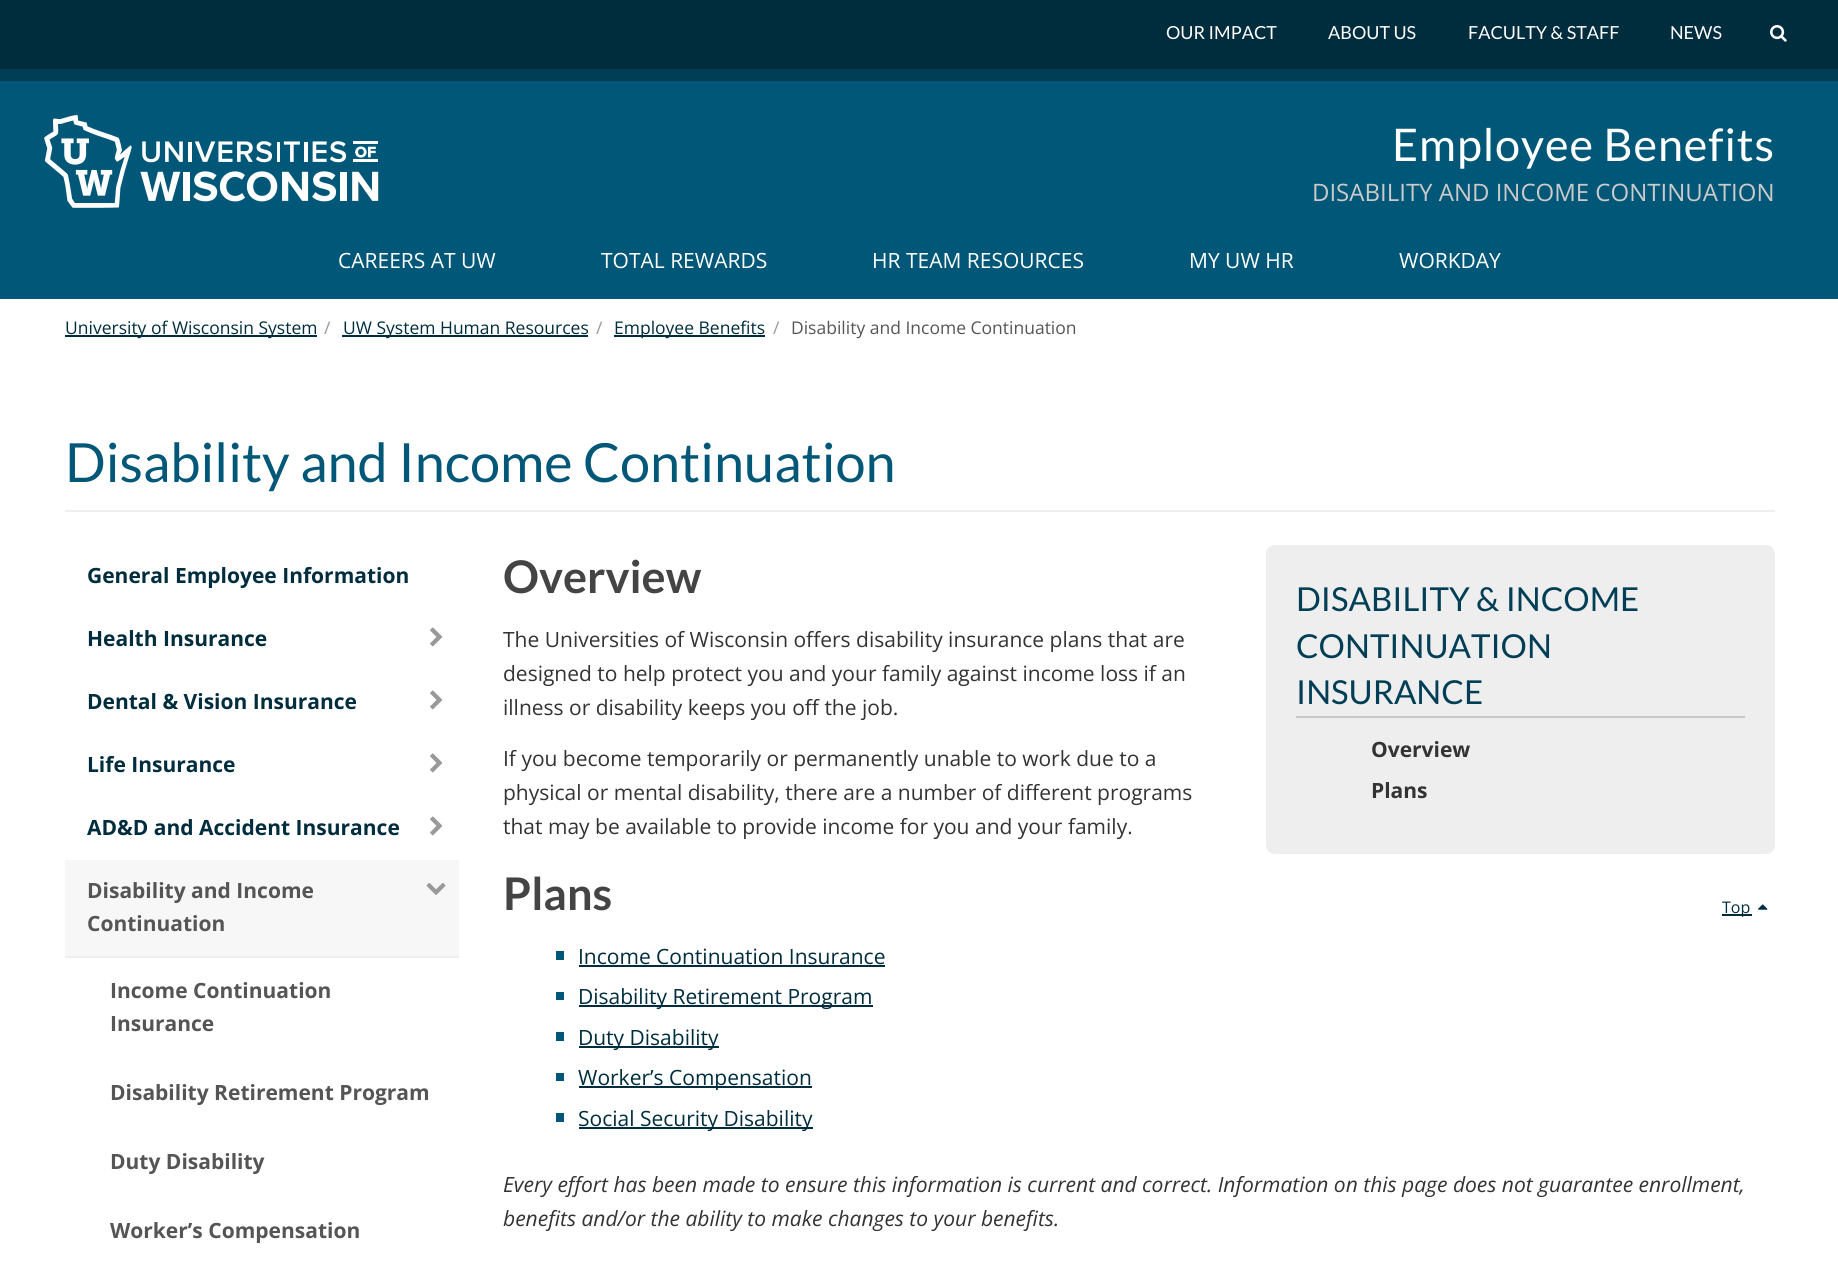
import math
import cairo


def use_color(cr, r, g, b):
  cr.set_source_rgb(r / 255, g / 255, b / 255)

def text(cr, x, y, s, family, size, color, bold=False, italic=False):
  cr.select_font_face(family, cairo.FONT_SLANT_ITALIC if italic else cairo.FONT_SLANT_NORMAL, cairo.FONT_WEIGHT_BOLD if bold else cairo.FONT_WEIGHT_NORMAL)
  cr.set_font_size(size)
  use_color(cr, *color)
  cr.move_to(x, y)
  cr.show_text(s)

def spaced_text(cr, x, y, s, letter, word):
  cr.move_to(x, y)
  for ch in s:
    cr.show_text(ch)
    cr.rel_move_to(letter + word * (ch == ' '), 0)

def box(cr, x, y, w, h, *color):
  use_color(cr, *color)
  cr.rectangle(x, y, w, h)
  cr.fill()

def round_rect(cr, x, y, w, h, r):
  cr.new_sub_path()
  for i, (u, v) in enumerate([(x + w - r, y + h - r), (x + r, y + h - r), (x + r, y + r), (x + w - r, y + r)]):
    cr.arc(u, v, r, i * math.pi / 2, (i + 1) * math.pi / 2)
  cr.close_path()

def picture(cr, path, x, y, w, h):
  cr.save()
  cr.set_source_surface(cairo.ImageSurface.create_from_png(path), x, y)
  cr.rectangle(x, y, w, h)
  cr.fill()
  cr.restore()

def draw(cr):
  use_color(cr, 255, 255, 255)
  cr.paint()
  box(cr, 0, 0, 1838, 69, 0, 45, 61)
  box(cr, 0, 69, 1838, 12, 0, 62, 85)
  picture(cr, "img_01.png", 1770, 25, 17, 17)
  box(cr, 0, 81, 1838, 218, 0, 87, 119)
  picture(cr, "img_02.png", 44, 115, 335, 93)
  box(cr, 65, 335, 252, 2, 0, 45, 61)
  box(cr, 342, 335, 246, 2, 0, 45, 61)
  box(cr, 614, 335, 151, 2, 0, 45, 61)
  box(cr, 65, 510, 1710, 2, 238, 238, 238)
  picture(cr, "img_03.png", 430, 627, 13, 20)
  picture(cr, "img_03.png", 430, 690, 13, 20)
  picture(cr, "img_03.png", 430, 753, 13, 20)
  picture(cr, "img_03.png", 430, 816, 13, 20)
  box(cr, 65, 860, 394, 96, 247, 247, 247)
  picture(cr, "img_04.png", 426, 883, 20, 12)
  box(cr, 65, 956, 394, 2, 238, 238, 238)
  round_rect(cr, 1266, 545, 509, 309, 9)
  cr.fill()
  box(cr, 1296, 716, 449, 2, 198, 198, 198)
  box(cr, 1722, 914, 30, 2, 0, 45, 61)
  picture(cr, "img_05.png", 1758, 904, 10, 6)
  box(cr, 556, 951, 8, 9, 0, 87, 119)
  box(cr, 579, 965, 306, 2, 0, 45, 61)
  box(cr, 556, 992, 8, 8, 0, 87, 119)
  box(cr, 579, 1005, 294, 2, 0, 45, 61)
  box(cr, 556, 1032, 8, 9, 0, 87, 119)
  box(cr, 579, 1046, 140, 2, 0, 45, 61)
  box(cr, 556, 1073, 8, 8, 0, 87, 119)
  box(cr, 579, 1086, 233, 2, 0, 45, 61)
  box(cr, 556, 1113, 8, 9, 0, 87, 119)
  box(cr, 579, 1127, 234, 2, 0, 45, 61)
  text(cr, 1166, 39, "OUR IMPACT", "Lato", 18, (255, 255, 255))
  text(cr, 1328, 39, "ABOUT US", "Lato", 18, (255, 255, 255))
  text(cr, 1468, 39, "FACULTY & STAFF", "Lato", 18, (255, 255, 255))
  text(cr, 1670, 39, "NEWS", "Lato", 18, (255, 255, 255))
  cr.set_font_size(45)
  spaced_text(cr, 1392, 161, "Employee Benefits", 0.9, 0)
  text(cr, 1312, 201, "DISABILITY AND INCOME CONTINUATION", "Open Sans", 24, (203, 203, 203))
  text(cr, 338, 268, "CAREERS AT UW", "Open Sans", 21, (255, 255, 255))
  text(cr, 601, 268, "TOTAL REWARDS", "Open Sans", 21, (255, 255, 255))
  text(cr, 872, 268, "HR TEAM RESOURCES", "Open Sans", 21, (255, 255, 255))
  text(cr, 1189, 268, "MY UW HR", "Open Sans", 21, (255, 255, 255))
  text(cr, 1399, 268, "WORKDAY", "Open Sans", 21, (255, 255, 255))
  text(cr, 65, 334, "University of Wisconsin System", "Open Sans", 17.5, (0, 45, 61))
  text(cr, 324, 334, "/", "Open Sans", 17.5, (153, 153, 153))
  text(cr, 343, 334, "UW System Human Resources", "Open Sans", 17.5, (0, 45, 61))
  text(cr, 596, 334, "/", "Open Sans", 17.5, (153, 153, 153))
  text(cr, 614, 334, "Employee Benefits", "Open Sans", 17.5, (0, 45, 61))
  text(cr, 773, 334, "/", "Open Sans", 17.5, (153, 153, 153))
  text(cr, 791, 334, "Disability and Income Continuation", "Open Sans", 17.5, (85, 85, 85))
  text(cr, 65, 482, "Disability and Income Continuation", "Lato", 54, (0, 87, 119))
  text(cr, 87, 583, "General Employee Information", "Open Sans", 21, (0, 45, 61), bold=True)
  text(cr, 87, 646, "Health Insurance", "Open Sans", 21, (0, 45, 61), bold=True)
  text(cr, 87, 709, "Dental & Vision Insurance", "Open Sans", 21, (0, 45, 61), bold=True)
  text(cr, 87, 772, "Life Insurance", "Open Sans", 21, (0, 45, 61), bold=True)
  text(cr, 87, 835, "AD&D and Accident Insurance", "Open Sans", 21, (0, 45, 61), bold=True)
  text(cr, 87, 898, "Disability and Income", "Open Sans", 21, (85, 85, 85), bold=True)
  text(cr, 87, 931, "Continuation", "Open Sans", 21, (85, 85, 85), bold=True)
  text(cr, 110, 998, "Income Continuation", "Open Sans", 21, (85, 85, 85), bold=True)
  text(cr, 110, 1031, "Insurance", "Open Sans", 21, (85, 85, 85), bold=True)
  text(cr, 110, 1100, "Disability Retirement Program", "Open Sans", 21, (85, 85, 85), bold=True)
  text(cr, 110, 1169, "Duty Disability", "Open Sans", 21, (85, 85, 85), bold=True)
  text(cr, 110, 1238, "Worker’s Compensation", "Open Sans", 21, (85, 85, 85), bold=True)
  text(cr, 503, 593, "Overview", "Lato", 45, (68, 68, 68), bold=True)
  text(cr, 503, 647, "The Universities of Wisconsin offers disability insurance plans that are", "Open Sans", 21, (51, 51, 51))
  text(cr, 503, 681, "designed to help protect you and your family against income loss if an", "Open Sans", 21, (51, 51, 51))
  text(cr, 503, 715, "illness or disability keeps you off the job.", "Open Sans", 21, (51, 51, 51))
  text(cr, 1296, 611, "DISABILITY & INCOME", "Lato", 33, (0, 62, 85))
  text(cr, 1296, 658, "CONTINUATION", "Lato", 33, (0, 62, 85))
  text(cr, 1296, 704, "INSURANCE", "Lato", 33, (0, 62, 85))
  text(cr, 1371, 757, "Overview", "Open Sans", 21, (51, 51, 51), bold=True)
  text(cr, 1371, 798, "Plans", "Open Sans", 21, (51, 51, 51), bold=True)
  text(cr, 503, 766, "If you become temporarily or permanently unable to work due to a", "Open Sans", 21, (51, 51, 51))
  text(cr, 503, 800, "physical or mental disability, there are a number of different programs", "Open Sans", 21, (51, 51, 51))
  text(cr, 503, 834, "that may be available to provide income for you and your family.", "Open Sans", 21, (51, 51, 51))
  text(cr, 503, 910, "Plans", "Lato", 45, (68, 68, 68), bold=True)
  text(cr, 1722, 913, "Top", "Open Sans", 16, (0, 45, 61))
  text(cr, 578, 964, "Income Continuation Insurance", "Open Sans", 21, (0, 45, 61))
  text(cr, 578, 1004, "Disability Retirement Program", "Open Sans", 21, (0, 45, 61))
  text(cr, 578, 1045, "Duty Disability", "Open Sans", 21, (0, 45, 61))
  text(cr, 578, 1085, "Worker’s Compensation", "Open Sans", 21, (0, 45, 61))
  text(cr, 578, 1126, "Social Security Disability", "Open Sans", 21, (0, 45, 61))
  text(cr, 503, 1192, "Every effort has been made to ensure this information is current and correct. Information on this page does not guarantee enrollment,", "Open Sans", 21, (51, 51, 51), italic=True)
  text(cr, 503, 1226, "benefits and/or the ability to make changes to your benefits.", "Open Sans", 21, (51, 51, 51), italic=True)


surface = cairo.ImageSurface(cairo.FORMAT_RGB24, 1838, 1282)
cr = cairo.Context(surface)
options = cairo.FontOptions()
options.set_hint_metrics(cairo.HINT_METRICS_OFF)
options.set_hint_style(cairo.HINT_STYLE_NONE)
cr.set_font_options(options)
cr.set_miter_limit(4)
draw(cr)
surface.write_to_png("out.png")
